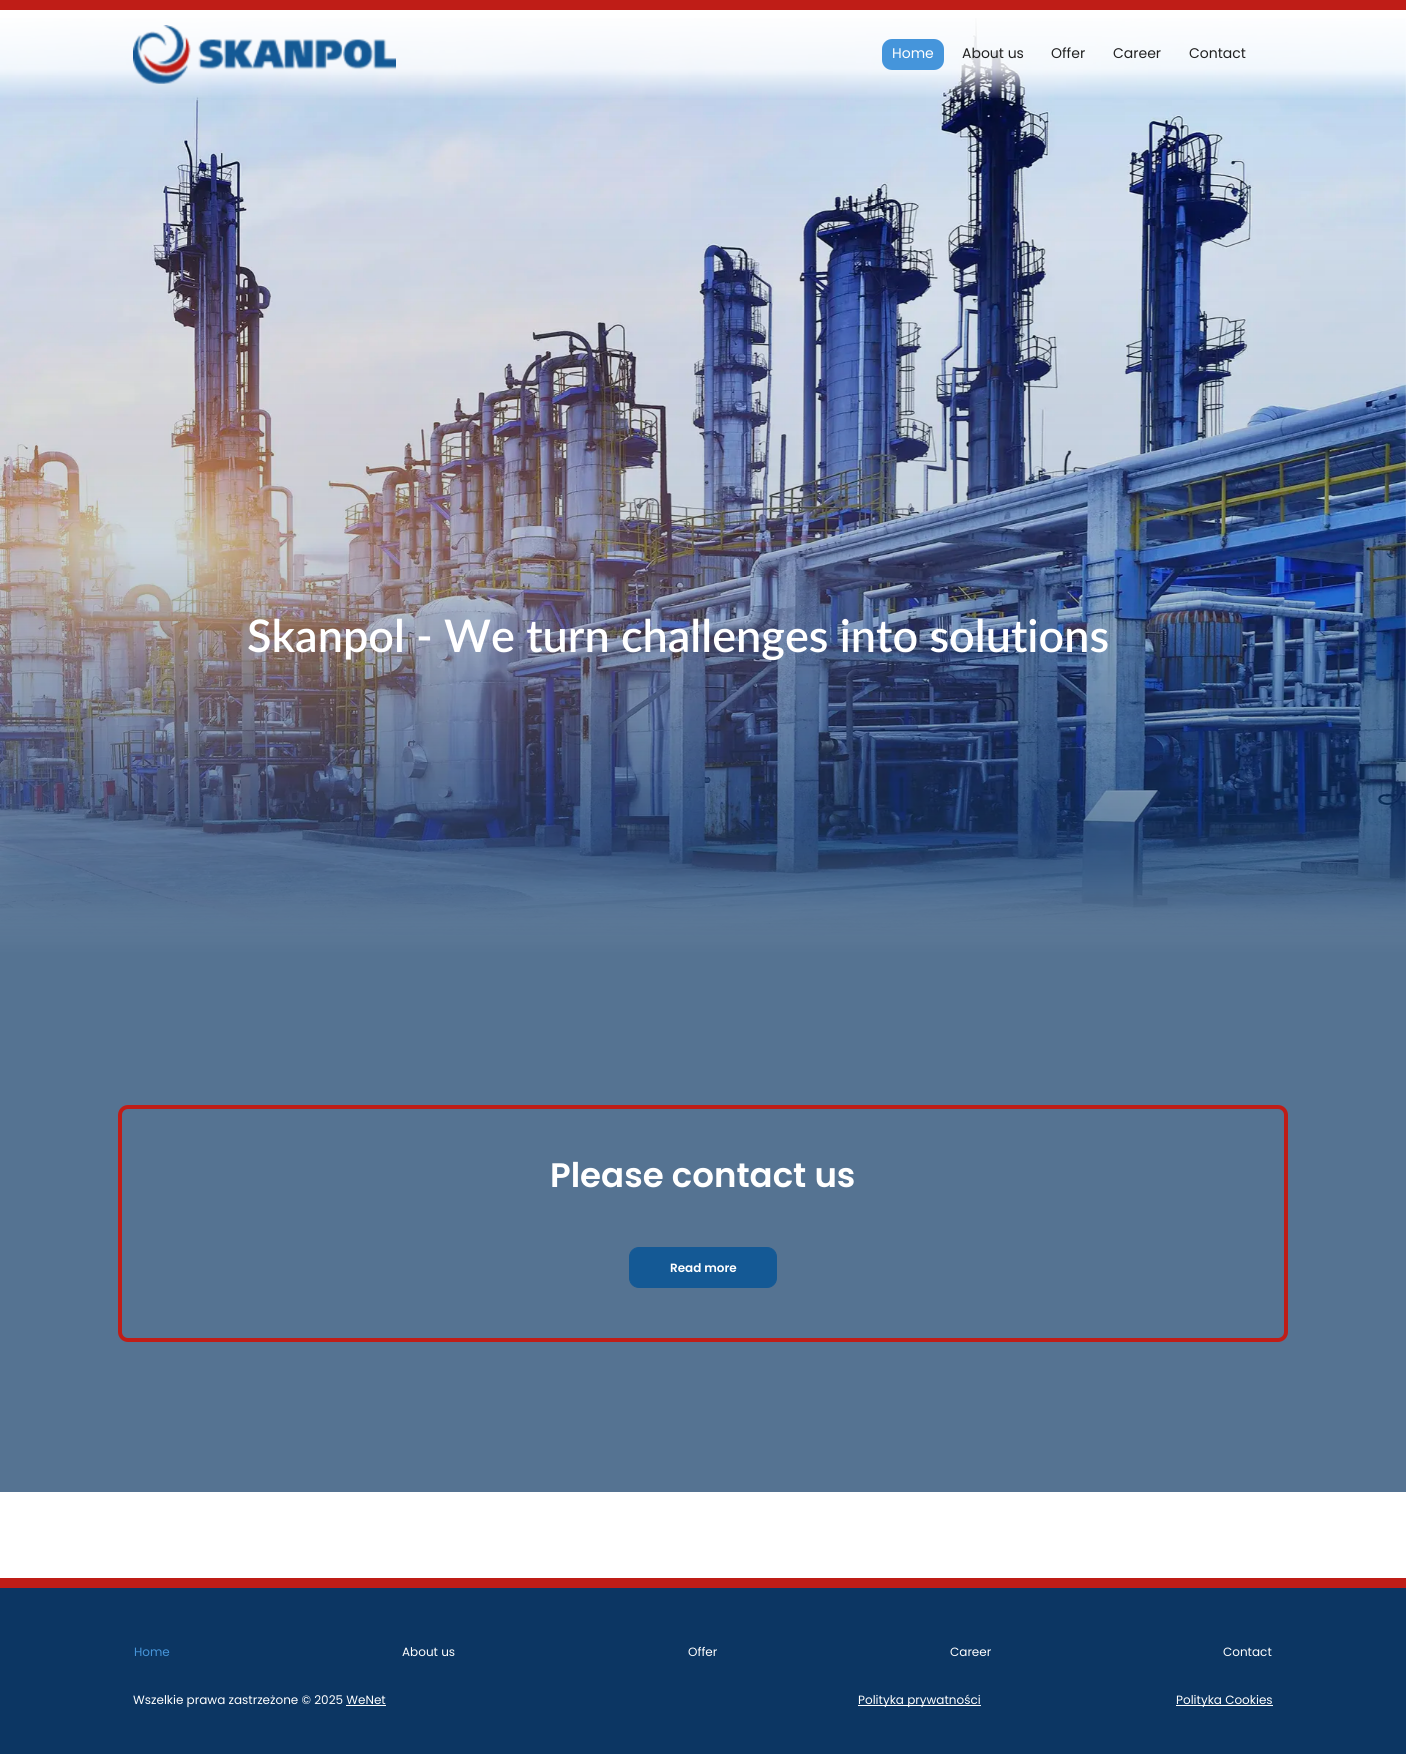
import math
import cairo


def use_color(cr, r, g, b):
  cr.set_source_rgb(r / 255, g / 255, b / 255)

def text(cr, x, y, s, family, size, color, bold=False, italic=False):
  cr.select_font_face(family, cairo.FONT_SLANT_ITALIC if italic else cairo.FONT_SLANT_NORMAL, cairo.FONT_WEIGHT_BOLD if bold else cairo.FONT_WEIGHT_NORMAL)
  cr.set_font_size(size)
  use_color(cr, *color)
  cr.move_to(x, y)
  cr.show_text(s)

def box(cr, x, y, w, h, *color):
  use_color(cr, *color)
  cr.rectangle(x, y, w, h)
  cr.fill()

def round_rect(cr, x, y, w, h, r):
  cr.new_sub_path()
  for i, (u, v) in enumerate([(x + w - r, y + h - r), (x + r, y + h - r), (x + r, y + r), (x + w - r, y + r)]):
    cr.arc(u, v, r, i * math.pi / 2, (i + 1) * math.pi / 2)
  cr.close_path()

def picture(cr, path, x, y, w, h):
  cr.save()
  cr.set_source_surface(cairo.ImageSurface.create_from_png(path), x, y)
  cr.rectangle(x, y, w, h)
  cr.fill()
  cr.restore()

def draw(cr):
  use_color(cr, 255, 255, 255)
  cr.paint()
  picture(cr, "img_02.png", 0, 18, 1406, 921)
  gradient = cairo.LinearGradient(703, 18, 703, 955)
  gradient.add_color_stop_rgba(0, 0.047, 0.212, 0.388, 0)
  gradient.add_color_stop_rgba(0.56, 0.047, 0.212, 0.388, 0.2)
  gradient.add_color_stop_rgba(1, 0.047, 0.212, 0.388, 0.7)
  cr.set_source(gradient)
  cr.rectangle(0, 75, 1406, 880)
  cr.fill()
  gradient = cairo.LinearGradient(703, 10, 703, 99)
  gradient.add_color_stop_rgba(0, 1, 1, 1, 1)
  gradient.add_color_stop_rgba(0.36, 1, 1, 1, 0.9)
  gradient.add_color_stop_rgba(0.66, 1, 1, 1, 0.8)
  gradient.add_color_stop_rgba(1, 1, 1, 1, 0)
  cr.set_source(gradient)
  cr.rectangle(0, 18, 1406, 80)
  cr.fill()
  box(cr, 0, 0, 1406, 10, 191, 29, 23)
  picture(cr, "img_01.png", 133, 25, 263, 59)
  use_color(cr, 69, 149, 219)
  round_rect(cr, 882, 39, 62, 31, 10)
  cr.fill()
  box(cr, 0, 955, 1406, 537, 85, 115, 146)
  round_rect(cr, 120, 1107, 1166, 233, 8)
  use_color(cr, 191, 29, 23)
  cr.set_line_width(4)
  cr.stroke()
  use_color(cr, 20, 89, 149)
  round_rect(cr, 629.5, 1247.5, 147, 40, 9.5)
  cr.fill_preserve()
  cr.set_line_width(1)
  cr.stroke()
  box(cr, 0, 1588, 1406, 166, 12, 54, 99)
  box(cr, 0, 1578, 1406, 10, 191, 29, 23)
  box(cr, 346, 1705, 40, 1, 255, 255, 255)
  box(cr, 858, 1705, 123, 1, 255, 255, 255)
  box(cr, 1176, 1705, 97, 1, 255, 255, 255)
  text(cr, 892, 58, "Home", "Poppins", 14, (255, 255, 255))
  text(cr, 962, 58, "About us", "Poppins", 14, (33, 33, 33))
  text(cr, 1051, 58, "Offer", "Poppins", 14, (33, 33, 33))
  text(cr, 1113, 58, "Career", "Poppins", 14, (33, 33, 33))
  text(cr, 1189, 58, "Contact", "Poppins", 14, (33, 33, 33))
  text(cr, 247, 652, "Skanpol - We turn challenges into solutions", "Lato SemiBold", 45, (255, 255, 255))
  text(cr, 550, 1187, "Please contact us", "Poppins SemiBold", 34, (255, 255, 255))
  text(cr, 670, 1272, "Read more", "Poppins SemiBold", 12, (255, 255, 255))
  text(cr, 134, 1656, "Home", "Poppins", 12, (71, 149, 217))
  text(cr, 402, 1656, "About us", "Poppins", 12, (255, 255, 255))
  text(cr, 688, 1656, "Offer", "Poppins", 12, (255, 255, 255))
  text(cr, 950, 1656, "Career", "Poppins", 12, (255, 255, 255))
  text(cr, 1223, 1656, "Contact", "Poppins", 12, (255, 255, 255))
  text(cr, 133, 1704, "Wszelkie prawa zastrzeżone © 2025 WeNet", "Poppins", 12, (255, 255, 255))
  text(cr, 858, 1704, "Polityka prywatności", "Poppins", 12, (255, 255, 255))
  text(cr, 1176, 1704, "Polityka Cookies", "Poppins", 12, (255, 255, 255))


surface = cairo.ImageSurface(cairo.FORMAT_RGB24, 1406, 1754)
cr = cairo.Context(surface)
options = cairo.FontOptions()
options.set_hint_metrics(cairo.HINT_METRICS_OFF)
options.set_hint_style(cairo.HINT_STYLE_NONE)
cr.set_font_options(options)
cr.set_miter_limit(4)
draw(cr)
surface.write_to_png("out.png")
